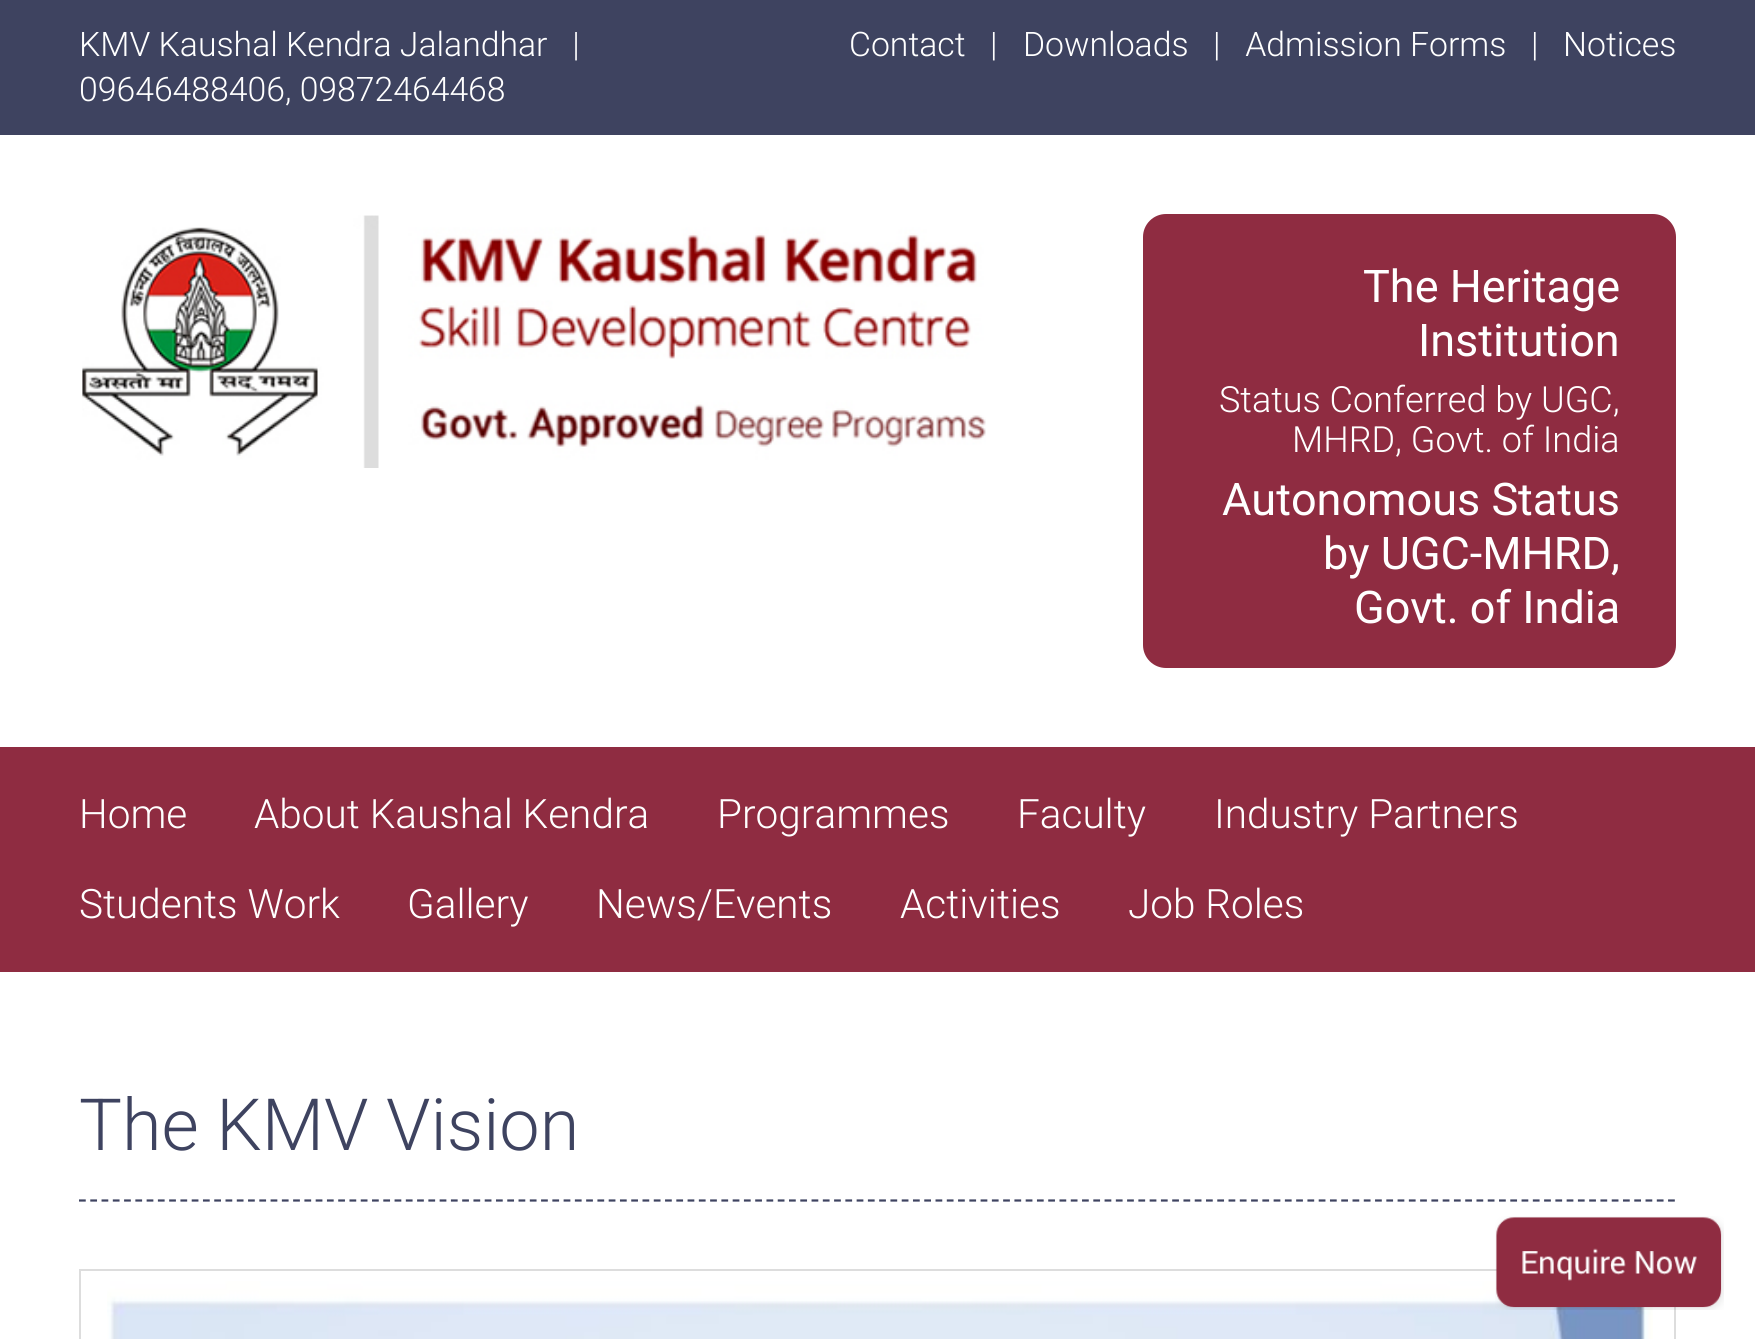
import math
import cairo


def use_color(cr, r, g, b):
  cr.set_source_rgb(r / 255, g / 255, b / 255)

def text(cr, x, y, s, family, size, color, bold=False, italic=False):
  cr.select_font_face(family, cairo.FONT_SLANT_ITALIC if italic else cairo.FONT_SLANT_NORMAL, cairo.FONT_WEIGHT_BOLD if bold else cairo.FONT_WEIGHT_NORMAL)
  cr.set_font_size(size)
  use_color(cr, *color)
  cr.move_to(x, y)
  cr.show_text(s)

def box(cr, x, y, w, h, *color):
  use_color(cr, *color)
  cr.rectangle(x, y, w, h)
  cr.fill()

def round_rect(cr, x, y, w, h, r):
  cr.new_sub_path()
  for i, (u, v) in enumerate([(x + w - r, y + h - r), (x + r, y + h - r), (x + r, y + r), (x + w - r, y + r)]):
    cr.arc(u, v, r, i * math.pi / 2, (i + 1) * math.pi / 2)
  cr.close_path()

def picture(cr, path, x, y, w, h):
  cr.save()
  cr.set_source_surface(cairo.ImageSurface.create_from_png(path), x, y)
  cr.rectangle(x, y, w, h)
  cr.fill()
  cr.restore()

def draw(cr):
  use_color(cr, 255, 255, 255)
  cr.paint()
  box(cr, 0, 0, 1755, 135, 62, 67, 96)
  picture(cr, "img_01.png", 82, 215, 904, 253)
  use_color(cr, 143, 44, 65)
  round_rect(cr, 1143, 214, 533, 454, 23)
  cr.fill()
  box(cr, 0, 747, 1755, 225, 143, 44, 65)
  cr.new_path()
  cr.move_to(79, 1200.5)
  cr.line_to(1676, 1200.5)
  use_color(cr, 62, 67, 96)
  cr.set_line_width(2.2)
  cr.set_dash([6.75, 4.52])
  cr.stroke()
  cr.rectangle(80, 1270, 1595, 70)
  use_color(cr, 221, 221, 221)
  cr.set_line_width(2)
  cr.set_dash([])
  cr.stroke()
  picture(cr, "img_02.png", 107, 1281, 1546, 58)
  picture(cr, "img_03.png", 1495, 1216, 229, 94)
  text(cr, 79, 56, "KMV Kaushal Kendra Jalandhar   |", "Roboto Light", 33.75, (255, 255, 255))
  text(cr, 79, 101, "09646488406, 09872464468", "Roboto Light", 33.75, (255, 255, 255))
  text(cr, 849, 56, "Contact", "Roboto Light", 33.75, (255, 255, 255))
  text(cr, 990, 56, "|", "Roboto Light", 33.75, (255, 255, 255))
  text(cr, 1023, 56, "Downloads", "Roboto Light", 33.75, (255, 255, 255))
  text(cr, 1213, 56, "|   Admission Forms   |   Notices", "Roboto Light", 33.75, (255, 255, 255))
  text(cr, 1363, 302, "The Heritage", "Roboto", 45, (255, 255, 255))
  text(cr, 1418, 356, "Institution", "Roboto", 45, (255, 255, 255))
  text(cr, 1219, 412, "Status Conferred by UGC,", "Roboto Light", 36, (255, 255, 255))
  text(cr, 1292, 452, "MHRD, Govt. of India", "Roboto Light", 36, (255, 255, 255))
  text(cr, 1222, 515, "Autonomous Status", "Roboto", 45, (255, 255, 255))
  text(cr, 1323, 569, "by UGC-MHRD,", "Roboto", 45, (255, 255, 255))
  text(cr, 1354, 623, "Govt. of India", "Roboto", 45, (255, 255, 255))
  text(cr, 79, 828, "Home", "Roboto Light", 40.5, (255, 255, 255))
  text(cr, 254, 828, "About Kaushal Kendra", "Roboto Light", 40.5, (255, 255, 255))
  text(cr, 717, 828, "Programmes", "Roboto Light", 40.5, (255, 255, 255))
  text(cr, 1017, 828, "Faculty", "Roboto Light", 40.5, (255, 255, 255))
  text(cr, 1214, 828, "Industry Partners", "Roboto Light", 40.5, (255, 255, 255))
  text(cr, 79, 918, "Students Work", "Roboto Light", 40.5, (255, 255, 255))
  text(cr, 407, 918, "Gallery", "Roboto Light", 40.5, (255, 255, 255))
  text(cr, 596, 918, "News/Events", "Roboto Light", 40.5, (255, 255, 255))
  text(cr, 900, 918, "Activities", "Roboto Light", 40.5, (255, 255, 255))
  text(cr, 1128, 918, "Job Roles", "Roboto Light", 40.5, (255, 255, 255))
  text(cr, 79, 1150, "The KMV Vision", "Roboto Light", 72, (62, 67, 96))


surface = cairo.ImageSurface(cairo.FORMAT_RGB24, 1755, 1339)
cr = cairo.Context(surface)
options = cairo.FontOptions()
options.set_hint_metrics(cairo.HINT_METRICS_OFF)
options.set_hint_style(cairo.HINT_STYLE_NONE)
cr.set_font_options(options)
cr.set_miter_limit(4)
draw(cr)
surface.write_to_png("out.png")
